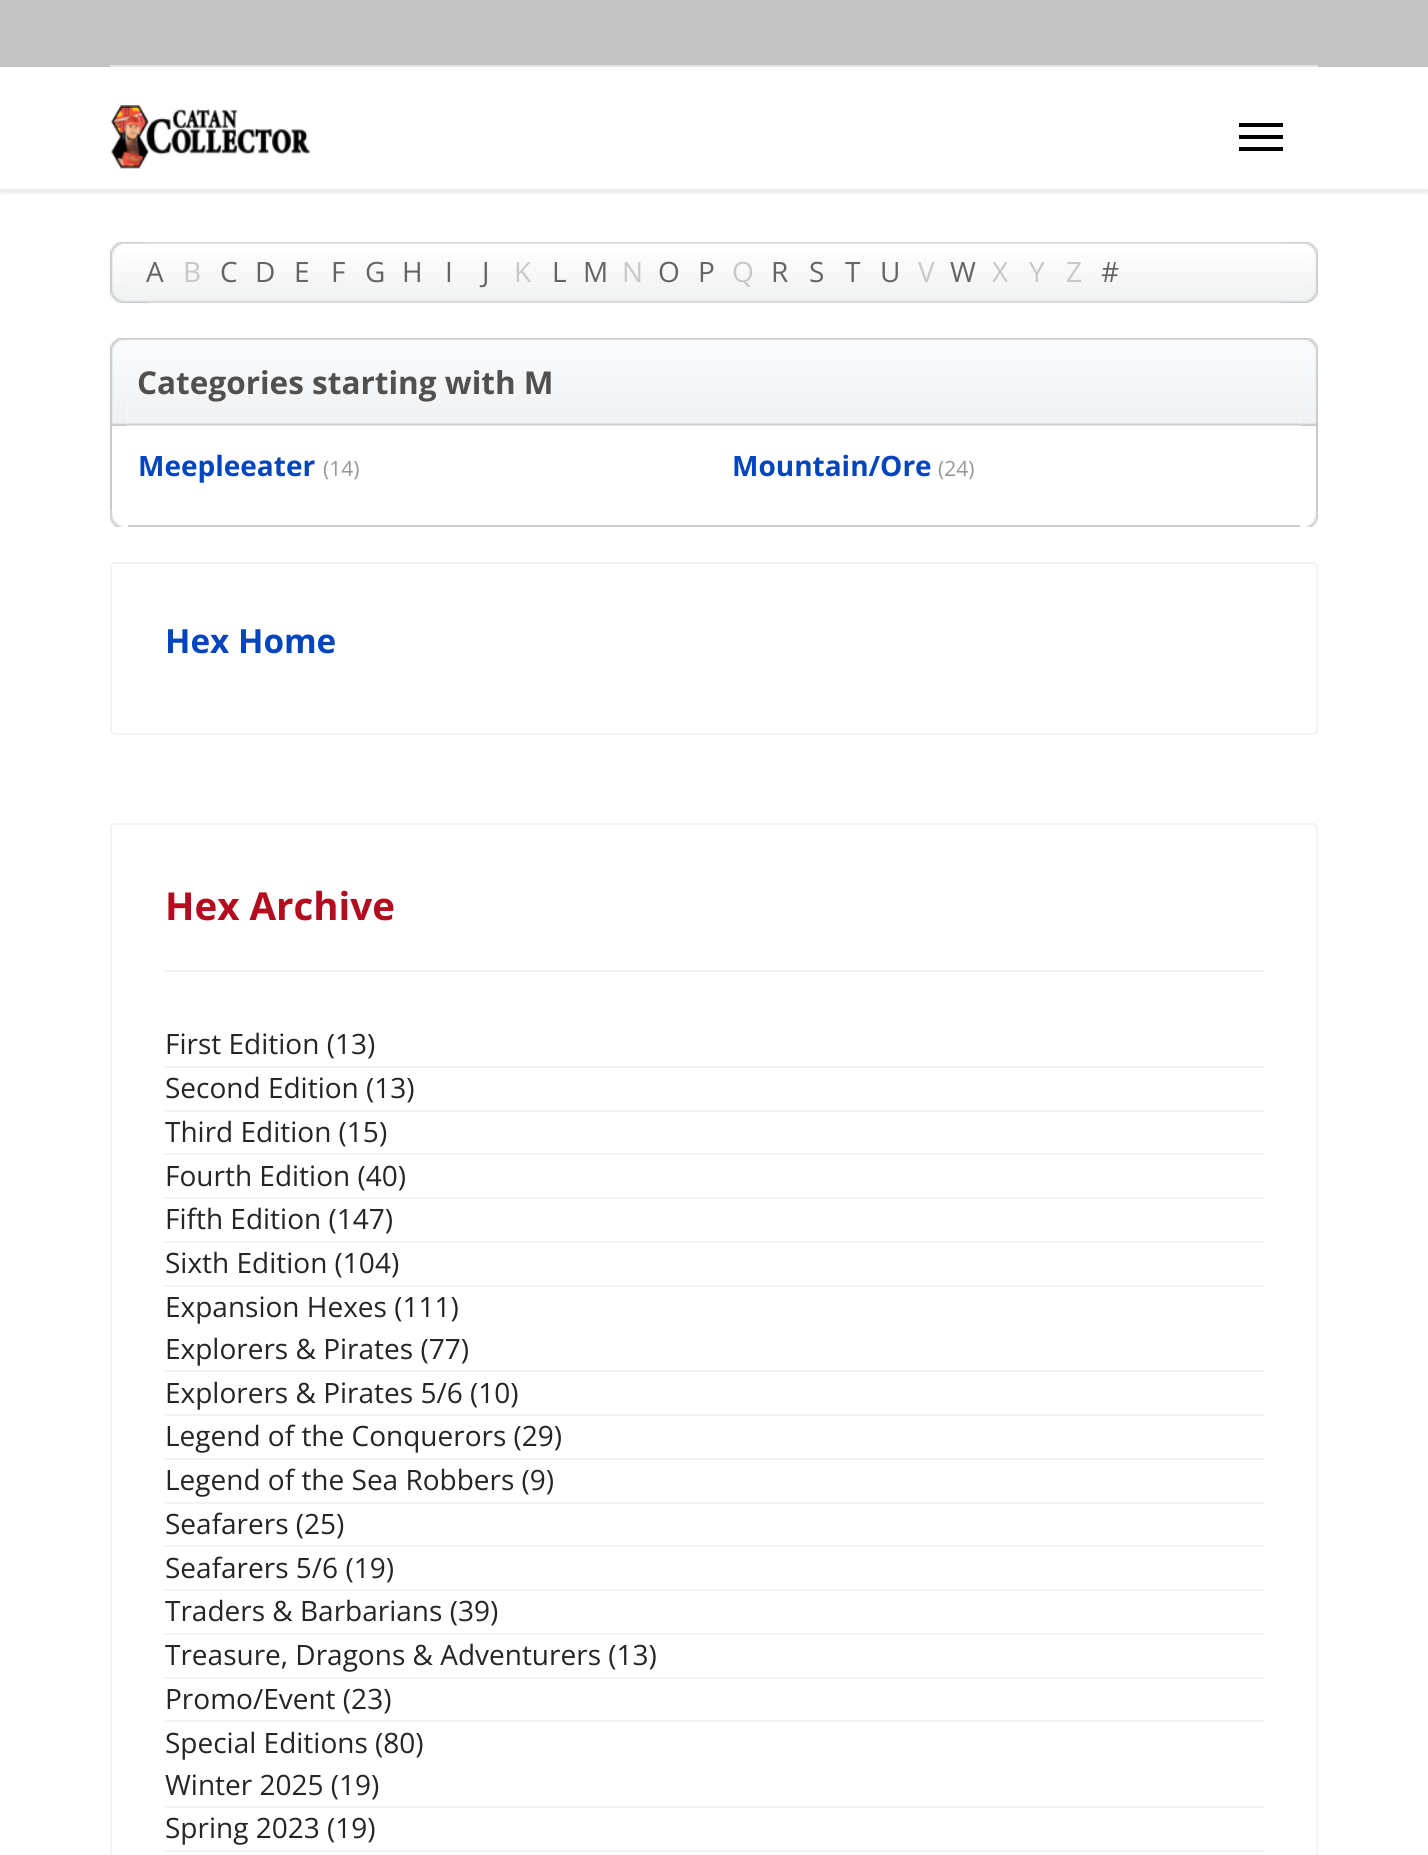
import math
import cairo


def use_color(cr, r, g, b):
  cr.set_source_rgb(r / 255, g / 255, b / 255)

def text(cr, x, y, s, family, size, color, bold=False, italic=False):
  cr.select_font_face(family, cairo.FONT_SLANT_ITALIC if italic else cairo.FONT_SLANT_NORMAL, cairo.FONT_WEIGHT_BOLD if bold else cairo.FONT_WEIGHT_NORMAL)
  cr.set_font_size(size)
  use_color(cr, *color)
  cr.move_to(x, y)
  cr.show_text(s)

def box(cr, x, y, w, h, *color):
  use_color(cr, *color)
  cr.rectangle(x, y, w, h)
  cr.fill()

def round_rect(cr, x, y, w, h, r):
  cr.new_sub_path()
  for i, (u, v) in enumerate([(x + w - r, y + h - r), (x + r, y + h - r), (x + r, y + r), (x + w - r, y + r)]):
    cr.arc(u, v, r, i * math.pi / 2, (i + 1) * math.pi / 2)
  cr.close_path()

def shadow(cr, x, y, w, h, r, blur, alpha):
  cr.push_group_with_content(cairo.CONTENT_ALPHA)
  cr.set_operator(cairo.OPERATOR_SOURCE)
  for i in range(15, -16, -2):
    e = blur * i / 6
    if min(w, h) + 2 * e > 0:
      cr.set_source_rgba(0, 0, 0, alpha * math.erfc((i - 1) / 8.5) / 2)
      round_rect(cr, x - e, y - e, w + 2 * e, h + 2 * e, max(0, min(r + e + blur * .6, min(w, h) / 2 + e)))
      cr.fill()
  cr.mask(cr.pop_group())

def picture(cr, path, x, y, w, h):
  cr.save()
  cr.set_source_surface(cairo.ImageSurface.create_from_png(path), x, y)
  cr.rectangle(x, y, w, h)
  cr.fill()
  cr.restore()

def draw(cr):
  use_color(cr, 255, 255, 255)
  cr.paint()
  box(cr, 0, 0, 1428, 67, 195, 195, 195)
  box(cr, 110, 65, 1208, 2, 229, 229, 229)
  cr.save()
  cr.rectangle(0, 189, 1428, 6)
  cr.clip()
  use_color(cr, 0, 0, 0)
  shadow(cr, 0, 88, 1428, 105, 0, 2.5, 0.1)
  cr.restore()
  picture(cr, "img_01.png", 111, 105, 199, 64)
  box(cr, 1239, 123, 44, 4, 0, 0, 0)
  box(cr, 1239, 135, 44, 4, 0, 0, 0)
  box(cr, 1239, 147, 44, 4, 0, 0, 0)
  picture(cr, "img_02.png", 110, 242, 38, 61)
  picture(cr, "img_03.png", 1280, 242, 38, 61)
  picture(cr, "img_04.png", 128, 242, 1172, 62)
  picture(cr, "img_05.png", 110, 338, 18, 16)
  picture(cr, "img_06.png", 1300, 338, 18, 16)
  box(cr, 128, 338, 1172, 1, 200, 203, 205)
  picture(cr, "img_07.png", 110, 338, 19, 88)
  picture(cr, "img_08.png", 1300, 338, 18, 88)
  picture(cr, "img_09.png", 128, 339, 1173, 87)
  box(cr, 1316, 426, 2, 85, 200, 203, 205)
  box(cr, 110, 426, 2, 85, 200, 203, 205)
  picture(cr, "img_10.png", 110, 511, 13, 16)
  picture(cr, "img_11.png", 1305, 511, 13, 16)
  box(cr, 128, 525, 1172, 2, 200, 203, 205)
  round_rect(cr, 111, 563, 1206, 171, 4)
  use_color(cr, 243, 243, 243)
  cr.stroke()
  round_rect(cr, 111, 824, 1206, 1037, 4)
  cr.stroke()
  box(cr, 165, 970, 1099, 2, 243, 243, 243)
  box(cr, 165, 1066, 1099, 2, 243, 243, 243)
  box(cr, 165, 1110, 1099, 2, 243, 243, 243)
  box(cr, 165, 1153, 1099, 2, 243, 243, 243)
  box(cr, 165, 1197, 1099, 2, 243, 243, 243)
  box(cr, 165, 1241, 1099, 2, 243, 243, 243)
  box(cr, 165, 1285, 1099, 2, 243, 243, 243)
  box(cr, 165, 1677, 1099, 2, 243, 243, 243)
  box(cr, 165, 1370, 1099, 2, 243, 243, 243)
  box(cr, 165, 1414, 1099, 2, 243, 243, 243)
  box(cr, 165, 1458, 1099, 2, 243, 243, 243)
  box(cr, 165, 1502, 1099, 2, 243, 243, 243)
  box(cr, 165, 1545, 1099, 2, 243, 243, 243)
  box(cr, 165, 1589, 1099, 2, 243, 243, 243)
  box(cr, 165, 1633, 1099, 2, 243, 243, 243)
  box(cr, 165, 1720, 1099, 2, 243, 243, 243)
  box(cr, 165, 1806, 1099, 2, 243, 243, 243)
  box(cr, 165, 1850, 1099, 2, 243, 243, 243)
  text(cr, 146, 282, "A", "Open Sans", 28, (100, 100, 100))
  text(cr, 183, 282, "B", "Open Sans", 28, (200, 200, 200))
  text(cr, 220, 282, "C", "Open Sans", 28, (100, 100, 100))
  text(cr, 255, 282, "D", "Open Sans", 28, (100, 100, 100))
  text(cr, 294, 282, "E", "Open Sans", 28, (100, 100, 100))
  text(cr, 331, 282, "F", "Open Sans", 28, (100, 100, 100))
  text(cr, 365, 282, "G", "Open Sans", 28, (100, 100, 100))
  text(cr, 402, 282, "H", "Open Sans", 28, (100, 100, 100))
  text(cr, 445, 282, "I", "Open Sans", 28, (100, 100, 100))
  text(cr, 482, 282, "J", "Open Sans", 28, (100, 100, 100))
  text(cr, 514, 282, "K", "Open Sans", 28, (200, 200, 200))
  text(cr, 552, 282, "L", "Open Sans", 28, (100, 100, 100))
  text(cr, 583, 282, "M", "Open Sans", 28, (100, 100, 100))
  text(cr, 622, 282, "N", "Open Sans", 28, (200, 200, 200))
  text(cr, 658, 282, "O", "Open Sans", 28, (100, 100, 100))
  text(cr, 698, 282, "P", "Open Sans", 28, (100, 100, 100))
  text(cr, 732, 282, "Q", "Open Sans", 28, (200, 200, 200))
  text(cr, 771, 282, "R", "Open Sans", 28, (100, 100, 100))
  text(cr, 809, 282, "S", "Open Sans", 28, (100, 100, 100))
  text(cr, 845, 282, "T", "Open Sans", 28, (100, 100, 100))
  text(cr, 880, 282, "U", "Open Sans", 28, (100, 100, 100))
  text(cr, 918, 282, "V", "Open Sans", 28, (200, 200, 200))
  text(cr, 950, 282, "W", "Open Sans", 28, (100, 100, 100))
  text(cr, 992, 282, "X", "Open Sans", 28, (200, 200, 200))
  text(cr, 1029, 282, "Y", "Open Sans", 28, (200, 200, 200))
  text(cr, 1066, 282, "Z", "Open Sans", 28, (200, 200, 200))
  text(cr, 1101, 282, "#", "Open Sans", 28, (100, 100, 100))
  text(cr, 137, 394, "Categories starting with M", "Open Sans", 31.5, (80, 80, 80), bold=True)
  text(cr, 138, 476, "Meepleeater", "Open Sans", 28, (3, 69, 191), bold=True)
  text(cr, 323, 476, "(14)", "Open Sans", 21, (150, 150, 150))
  text(cr, 732, 476, "Mountain/Ore", "Open Sans", 28, (3, 69, 191), bold=True)
  text(cr, 938, 476, "(24)", "Open Sans", 21, (150, 150, 150))
  text(cr, 165, 653, "Hex Home", "Open Sans", 33.25, (3, 69, 191), bold=True)
  text(cr, 165, 920, "Hex Archive", "Open Sans", 38.5, (180, 11, 30), bold=True)
  text(cr, 165, 1054, "First Edition (13)", "Open Sans", 28, (37, 37, 37))
  text(cr, 165, 1098, "Second Edition (13)", "Open Sans", 28, (37, 37, 37))
  text(cr, 165, 1142, "Third Edition (15)", "Open Sans", 28, (37, 37, 37))
  text(cr, 165, 1186, "Fourth Edition (40)", "Open Sans", 28, (37, 37, 37))
  text(cr, 165, 1229, "Fifth Edition (147)", "Open Sans", 28, (37, 37, 37))
  text(cr, 165, 1273, "Sixth Edition (104)", "Open Sans", 28, (37, 37, 37))
  text(cr, 165, 1317, "Expansion Hexes (111)", "Open Sans", 28, (37, 37, 37))
  text(cr, 165, 1359, "Explorers & Pirates (77)", "Open Sans", 28, (37, 37, 37))
  text(cr, 165, 1403, "Explorers & Pirates 5/6 (10)", "Open Sans", 28, (37, 37, 37))
  text(cr, 165, 1446, "Legend of the Conquerors (29)", "Open Sans", 28, (37, 37, 37))
  text(cr, 165, 1490, "Legend of the Sea Robbers (9)", "Open Sans", 28, (37, 37, 37))
  text(cr, 165, 1534, "Seafarers (25)", "Open Sans", 28, (37, 37, 37))
  text(cr, 165, 1578, "Seafarers 5/6 (19)", "Open Sans", 28, (37, 37, 37))
  text(cr, 165, 1621, "Traders & Barbarians (39)", "Open Sans", 28, (37, 37, 37))
  text(cr, 165, 1665, "Treasure, Dragons & Adventurers (13)", "Open Sans", 28, (37, 37, 37))
  text(cr, 165, 1709, "Promo/Event (23)", "Open Sans", 28, (37, 37, 37))
  text(cr, 165, 1753, "Special Editions (80)", "Open Sans", 28, (37, 37, 37))
  text(cr, 165, 1795, "Winter 2025 (19)", "Open Sans", 28, (37, 37, 37))
  text(cr, 165, 1838, "Spring 2023 (19)", "Open Sans", 28, (37, 37, 37))


surface = cairo.ImageSurface(cairo.FORMAT_RGB24, 1428, 1855)
cr = cairo.Context(surface)
options = cairo.FontOptions()
options.set_hint_metrics(cairo.HINT_METRICS_OFF)
options.set_hint_style(cairo.HINT_STYLE_NONE)
cr.set_font_options(options)
cr.set_miter_limit(4)
draw(cr)
surface.write_to_png("out.png")
